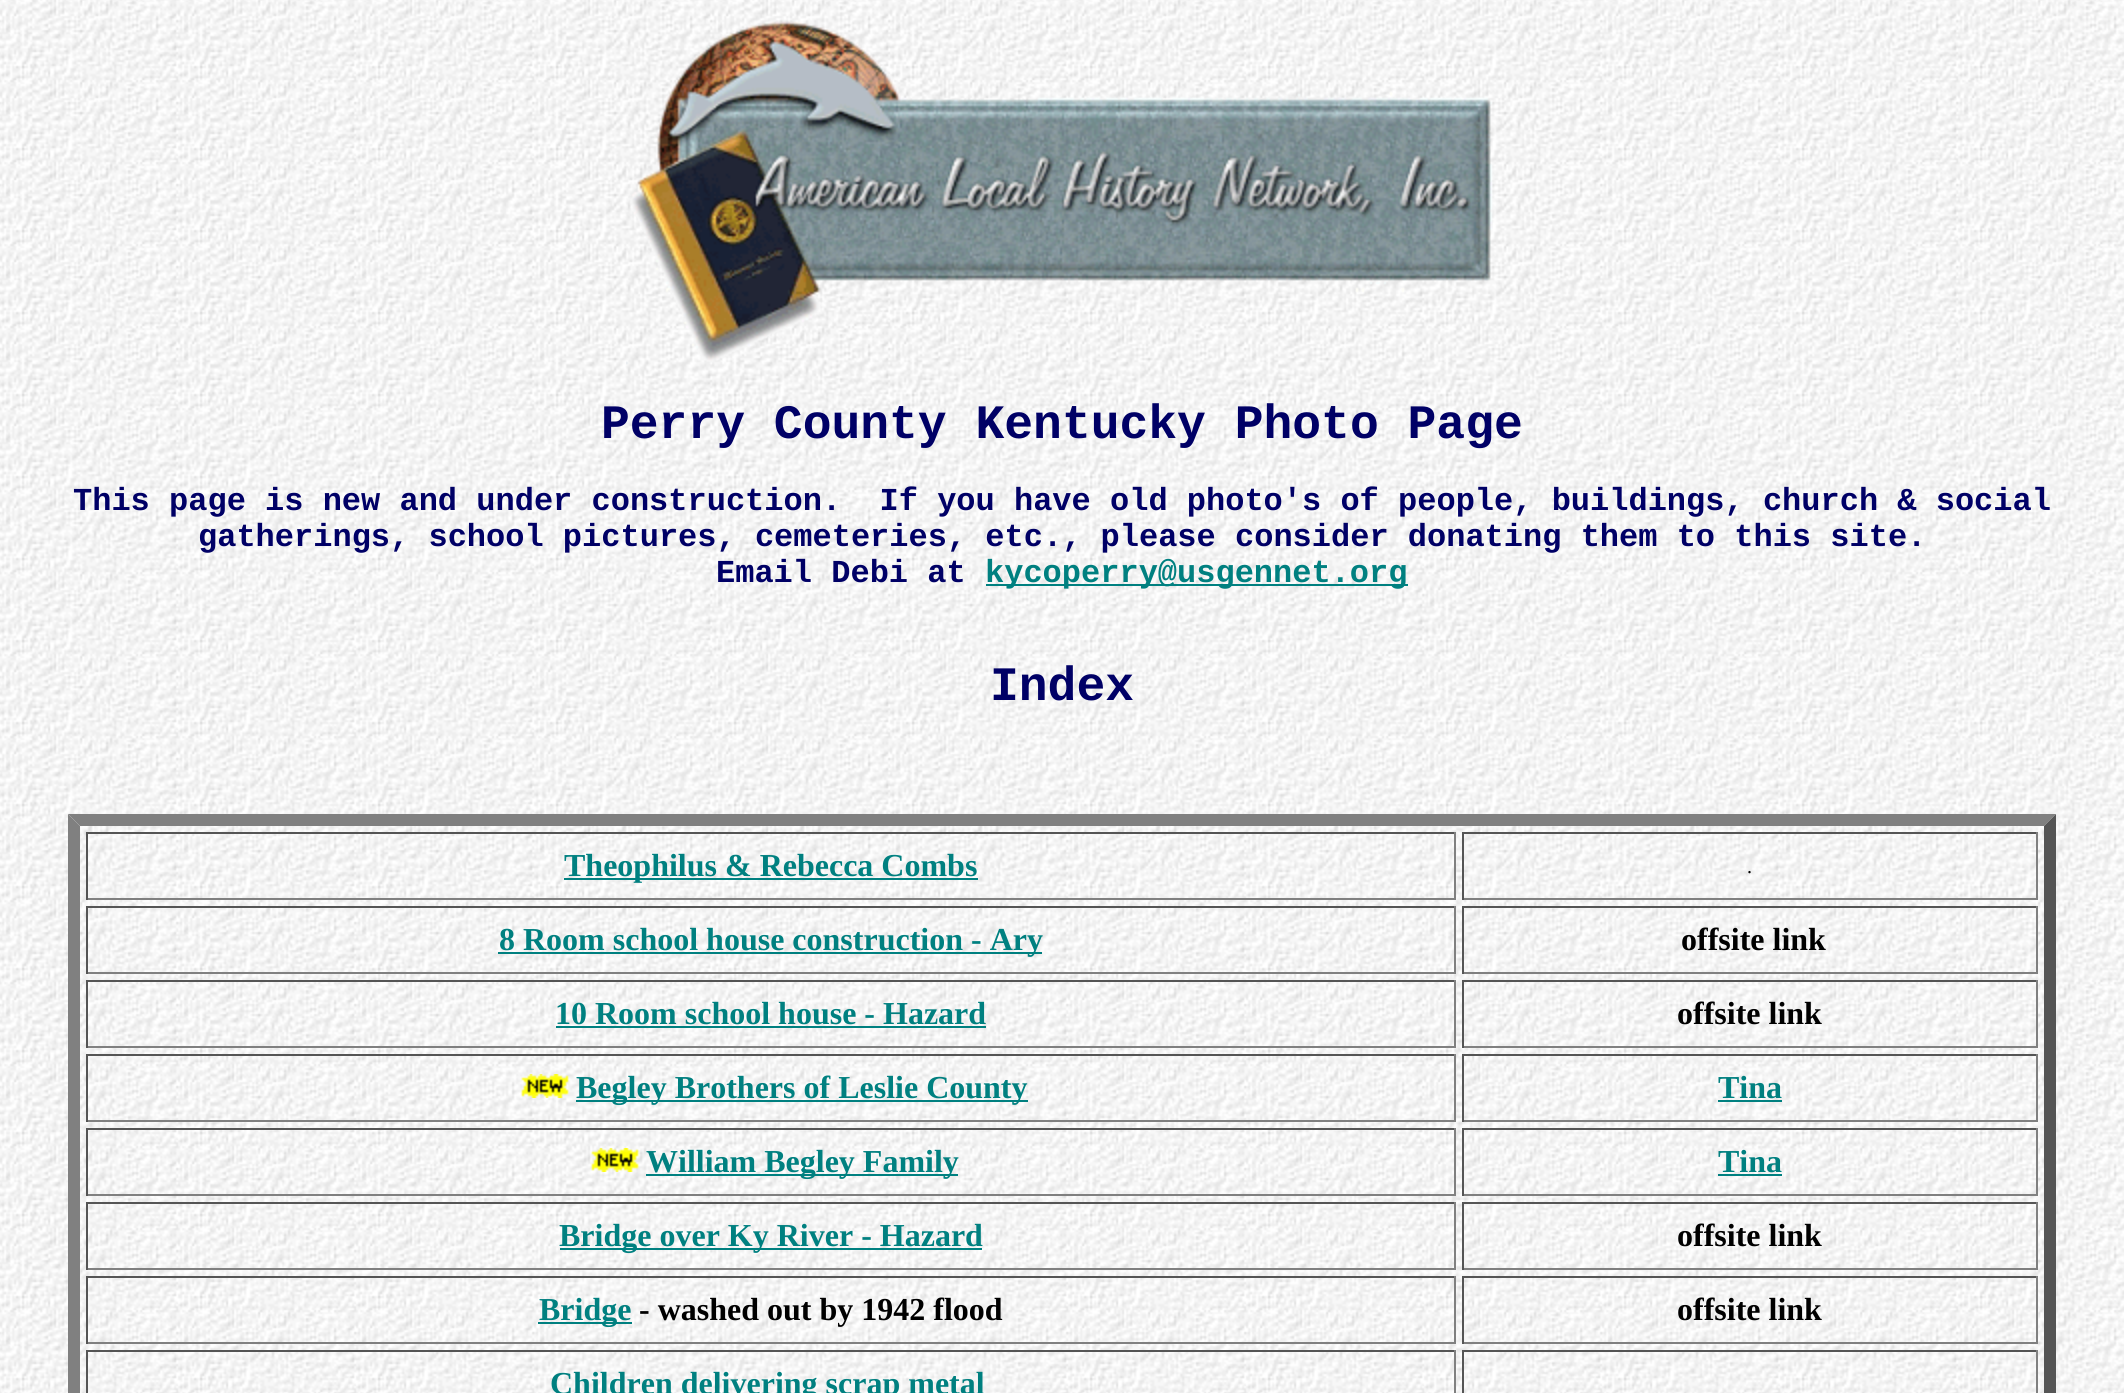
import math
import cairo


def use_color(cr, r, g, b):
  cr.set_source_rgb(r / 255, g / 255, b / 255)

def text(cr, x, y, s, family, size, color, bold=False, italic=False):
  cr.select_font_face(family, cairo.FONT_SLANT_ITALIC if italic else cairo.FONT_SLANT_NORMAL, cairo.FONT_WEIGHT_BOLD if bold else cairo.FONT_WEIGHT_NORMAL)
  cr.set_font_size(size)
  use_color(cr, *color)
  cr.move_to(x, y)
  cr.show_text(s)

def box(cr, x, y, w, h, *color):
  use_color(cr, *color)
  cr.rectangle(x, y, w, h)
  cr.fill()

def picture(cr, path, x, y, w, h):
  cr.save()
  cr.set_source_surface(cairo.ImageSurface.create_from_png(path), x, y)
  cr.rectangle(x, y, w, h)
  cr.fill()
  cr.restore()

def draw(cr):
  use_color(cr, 255, 255, 255)
  cr.paint()
  picture(cr, "img_01.png", 0, 0, 2124, 1393)
  picture(cr, "img_02.png", 626, 21, 867, 344)
  box(cr, 986, 584, 422, 2, 0, 128, 128)
  use_color(cr, 128, 128, 128)
  cr.new_path()
  cr.move_to(68, 814)
  cr.line_to(2056, 814)
  cr.line_to(2044, 826)
  cr.line_to(80, 826)
  cr.close_path()
  cr.fill()
  use_color(cr, 85, 85, 85)
  cr.new_path()
  cr.move_to(2056, 814)
  cr.line_to(2056, 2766)
  cr.line_to(2044, 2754)
  cr.line_to(2044, 826)
  cr.close_path()
  cr.fill()
  use_color(cr, 128, 128, 128)
  cr.new_path()
  cr.move_to(68, 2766)
  cr.line_to(68, 814)
  cr.line_to(80, 826)
  cr.line_to(80, 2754)
  cr.close_path()
  cr.fill()
  box(cr, 86, 832, 1370, 2, 85, 85, 85)
  box(cr, 1454, 832, 2, 68, 128, 128, 128)
  box(cr, 86, 898, 1370, 2, 128, 128, 128)
  box(cr, 86, 832, 2, 68, 85, 85, 85)
  box(cr, 564, 878, 414, 2, 0, 128, 128)
  box(cr, 1462, 832, 576, 2, 85, 85, 85)
  box(cr, 2036, 832, 2, 68, 128, 128, 128)
  box(cr, 1462, 898, 576, 2, 128, 128, 128)
  box(cr, 1462, 832, 2, 68, 85, 85, 85)
  box(cr, 86, 906, 1370, 2, 85, 85, 85)
  box(cr, 1454, 906, 2, 68, 128, 128, 128)
  box(cr, 86, 972, 1370, 2, 128, 128, 128)
  box(cr, 86, 906, 2, 68, 85, 85, 85)
  box(cr, 498, 952, 544, 2, 0, 128, 128)
  box(cr, 1462, 906, 576, 2, 85, 85, 85)
  box(cr, 2036, 906, 2, 68, 128, 128, 128)
  box(cr, 1462, 972, 576, 2, 128, 128, 128)
  box(cr, 1462, 906, 2, 68, 85, 85, 85)
  box(cr, 86, 980, 1370, 2, 85, 85, 85)
  box(cr, 1454, 980, 2, 68, 128, 128, 128)
  box(cr, 86, 1046, 1370, 2, 128, 128, 128)
  box(cr, 86, 980, 2, 68, 85, 85, 85)
  box(cr, 556, 1026, 430, 2, 0, 128, 128)
  box(cr, 1462, 980, 576, 2, 85, 85, 85)
  box(cr, 2036, 980, 2, 68, 128, 128, 128)
  box(cr, 1462, 1046, 576, 2, 128, 128, 128)
  box(cr, 1462, 980, 2, 68, 85, 85, 85)
  box(cr, 86, 1054, 1370, 2, 85, 85, 85)
  box(cr, 1454, 1054, 2, 68, 128, 128, 128)
  box(cr, 86, 1120, 1370, 2, 128, 128, 128)
  box(cr, 86, 1054, 2, 68, 85, 85, 85)
  picture(cr, "img_03.png", 521, 1074, 48, 24)
  box(cr, 576, 1100, 452, 2, 0, 128, 128)
  box(cr, 1462, 1054, 576, 2, 85, 85, 85)
  box(cr, 2036, 1054, 2, 68, 128, 128, 128)
  box(cr, 1462, 1120, 576, 2, 128, 128, 128)
  box(cr, 1462, 1054, 2, 68, 85, 85, 85)
  box(cr, 1718, 1100, 64, 2, 0, 128, 128)
  box(cr, 86, 1128, 1370, 2, 85, 85, 85)
  box(cr, 1454, 1128, 2, 68, 128, 128, 128)
  box(cr, 86, 1194, 1370, 2, 128, 128, 128)
  box(cr, 86, 1128, 2, 68, 85, 85, 85)
  picture(cr, "img_04.png", 591, 1148, 48, 24)
  box(cr, 646, 1174, 312, 2, 0, 128, 128)
  box(cr, 1462, 1128, 576, 2, 85, 85, 85)
  box(cr, 2036, 1128, 2, 68, 128, 128, 128)
  box(cr, 1462, 1194, 576, 2, 128, 128, 128)
  box(cr, 1462, 1128, 2, 68, 85, 85, 85)
  box(cr, 1718, 1174, 64, 2, 0, 128, 128)
  box(cr, 86, 1202, 1370, 2, 85, 85, 85)
  box(cr, 1454, 1202, 2, 68, 128, 128, 128)
  box(cr, 86, 1268, 1370, 2, 128, 128, 128)
  box(cr, 86, 1202, 2, 68, 85, 85, 85)
  box(cr, 560, 1248, 422, 2, 0, 128, 128)
  box(cr, 1462, 1202, 576, 2, 85, 85, 85)
  box(cr, 2036, 1202, 2, 68, 128, 128, 128)
  box(cr, 1462, 1268, 576, 2, 128, 128, 128)
  box(cr, 1462, 1202, 2, 68, 85, 85, 85)
  box(cr, 86, 1276, 1370, 2, 85, 85, 85)
  box(cr, 1454, 1276, 2, 68, 128, 128, 128)
  box(cr, 86, 1342, 1370, 2, 128, 128, 128)
  box(cr, 86, 1276, 2, 68, 85, 85, 85)
  box(cr, 538, 1322, 94, 2, 0, 128, 128)
  box(cr, 1462, 1276, 576, 2, 85, 85, 85)
  box(cr, 2036, 1276, 2, 68, 128, 128, 128)
  box(cr, 1462, 1342, 576, 2, 128, 128, 128)
  box(cr, 1462, 1276, 2, 68, 85, 85, 85)
  box(cr, 86, 1350, 1370, 2, 85, 85, 85)
  box(cr, 1454, 1350, 2, 43, 128, 128, 128)
  box(cr, 86, 1350, 2, 43, 85, 85, 85)
  box(cr, 1462, 1350, 576, 2, 85, 85, 85)
  box(cr, 2036, 1350, 2, 43, 128, 128, 128)
  box(cr, 1462, 1350, 2, 43, 85, 85, 85)
  text(cr, 601, 438, "Perry County Kentucky Photo Page", "Liberation Mono", 48, (0, 0, 102), bold=True)
  text(cr, 73, 510, "This page is new and under construction.  If you have old photo's of people, buildings, church & social", "Liberation Mono", 32, (0, 0, 102), bold=True)
  text(cr, 198, 546, "gatherings, school pictures, cemeteries, etc., please consider donating them to this site.", "Liberation Mono", 32, (0, 0, 102), bold=True)
  text(cr, 716, 582, "Email Debi at", "Liberation Mono", 32, (0, 0, 102), bold=True)
  text(cr, 985, 582, "kycoperry@usgennet.org", "Liberation Mono", 32, (0, 128, 128), bold=True)
  text(cr, 990, 700, "Index", "Liberation Mono", 48, (0, 0, 102), bold=True)
  text(cr, 564, 876, "Theophilus & Rebecca Combs", "Liberation Serif", 32, (0, 128, 128), bold=True)
  text(cr, 1747, 873, ".", "Liberation Serif", 20, (0, 0, 0))
  text(cr, 499, 950, "8 Room school house construction - Ary", "Liberation Serif", 32, (0, 128, 128), bold=True)
  text(cr, 1681, 950, "offsite link", "Liberation Serif", 32, (0, 0, 0), bold=True)
  text(cr, 555, 1024, "10 Room school house - Hazard", "Liberation Serif", 32, (0, 128, 128), bold=True)
  text(cr, 1677, 1024, "offsite link", "Liberation Serif", 32, (0, 0, 0), bold=True)
  text(cr, 576, 1098, "Begley Brothers of Leslie County", "Liberation Serif", 32, (0, 128, 128), bold=True)
  text(cr, 1718, 1098, "Tina", "Liberation Serif", 32, (0, 128, 128), bold=True)
  text(cr, 646, 1172, "William Begley Family", "Liberation Serif", 32, (0, 128, 128), bold=True)
  text(cr, 1718, 1172, "Tina", "Liberation Serif", 32, (0, 128, 128), bold=True)
  text(cr, 559, 1246, "Bridge over Ky River - Hazard", "Liberation Serif", 32, (0, 128, 128), bold=True)
  text(cr, 1677, 1246, "offsite link", "Liberation Serif", 32, (0, 0, 0), bold=True)
  text(cr, 539, 1320, "Bridge", "Liberation Serif", 32, (0, 128, 128), bold=True)
  text(cr, 639, 1320, "- washed out by 1942 flood", "Liberation Serif", 32, (0, 0, 0), bold=True)
  text(cr, 1677, 1320, "offsite link", "Liberation Serif", 32, (0, 0, 0), bold=True)
  text(cr, 550, 1394, "Children delivering scrap metal", "Liberation Serif", 32, (0, 128, 128), bold=True)


surface = cairo.ImageSurface(cairo.FORMAT_RGB24, 2124, 1393)
cr = cairo.Context(surface)
options = cairo.FontOptions()
options.set_hint_metrics(cairo.HINT_METRICS_OFF)
options.set_hint_style(cairo.HINT_STYLE_NONE)
cr.set_font_options(options)
cr.set_miter_limit(4)
draw(cr)
surface.write_to_png("out.png")
